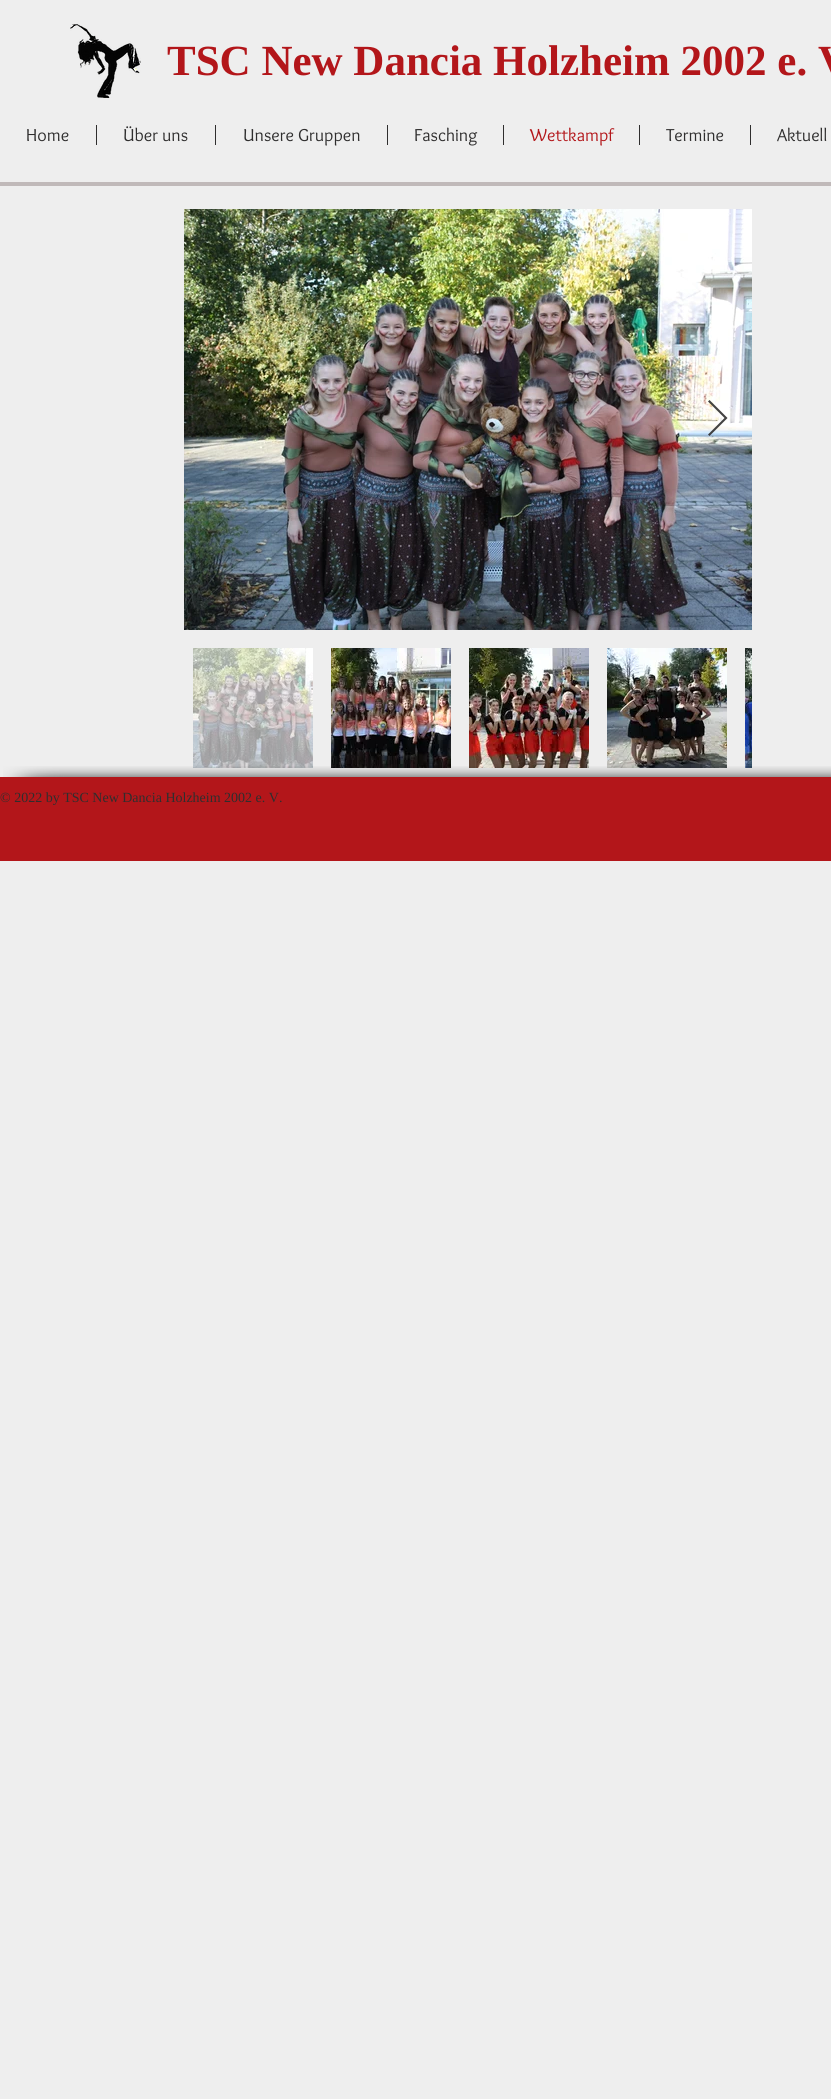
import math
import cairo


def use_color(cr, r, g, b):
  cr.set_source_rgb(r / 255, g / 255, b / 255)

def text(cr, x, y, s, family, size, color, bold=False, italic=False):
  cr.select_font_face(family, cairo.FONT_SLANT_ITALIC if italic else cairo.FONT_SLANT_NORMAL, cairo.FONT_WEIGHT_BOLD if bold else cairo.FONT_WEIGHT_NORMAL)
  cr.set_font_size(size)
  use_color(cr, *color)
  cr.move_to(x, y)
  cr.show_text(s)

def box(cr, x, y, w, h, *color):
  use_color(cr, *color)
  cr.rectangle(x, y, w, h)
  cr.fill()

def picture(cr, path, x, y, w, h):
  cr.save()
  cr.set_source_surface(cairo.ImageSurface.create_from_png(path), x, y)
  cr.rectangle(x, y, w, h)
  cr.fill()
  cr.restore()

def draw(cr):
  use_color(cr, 238, 238, 238)
  cr.paint()
  picture(cr, "img_01.png", 70, 24, 71, 74)
  box(cr, 96, 125, 1, 20, 47, 46, 46)
  box(cr, 215, 125, 1, 20, 47, 46, 46)
  box(cr, 387, 125, 1, 20, 47, 46, 46)
  box(cr, 503, 125, 1, 20, 47, 46, 46)
  box(cr, 639, 125, 1, 20, 47, 46, 46)
  box(cr, 750, 125, 1, 20, 47, 46, 46)
  box(cr, 0, 182, 831, 4, 192, 185, 185)
  picture(cr, "img_02.png", 184, 209, 568, 421)
  cr.set_source_rgba(0.184, 0.18, 0.18, 0.9)
  cr.new_path()
  cr.move_to(708, 401.5)
  cr.line_to(709.5, 400)
  cr.line_to(727.5, 418)
  cr.line_to(709.5, 436)
  cr.line_to(708, 434.5)
  cr.line_to(724.5, 418)
  cr.close_path()
  cr.fill()
  picture(cr, "img_03.png", 193, 648, 120, 120)
  picture(cr, "img_04.png", 331, 648, 120, 120)
  picture(cr, "img_05.png", 469, 648, 120, 120)
  picture(cr, "img_06.png", 607, 648, 120, 120)
  picture(cr, "img_07.png", 745, 648, 7, 120)
  box(cr, 0, 777, 831, 84, 179, 22, 26)
  picture(cr, "img_08.png", 3, 766, 97, 11)
  picture(cr, "img_09.png", 100, 766, 731, 11)
  text(cr, 167, 75, "TSC New Dancia Holzheim 2002 e. V", "Liberation Serif", 43, (179, 22, 26), bold=True)
  text(cr, 26, 141, "Home", "Overlock", 18, (47, 46, 46))
  text(cr, 123, 141, "Über uns", "Overlock", 18, (47, 46, 46))
  text(cr, 243, 141, "Unsere Gruppen", "Overlock", 18, (47, 46, 46))
  text(cr, 414, 141, "Fasching", "Overlock", 18, (47, 46, 46))
  text(cr, 530, 141, "Wettkampf", "Overlock", 18, (179, 22, 26))
  text(cr, 666, 141, "Termine", "Overlock", 18, (47, 46, 46))
  text(cr, 777, 141, "Aktuell", "Overlock", 18, (47, 46, 46))
  text(cr, 0, 802, "© 2022 by TSC New Dancia Holzheim 2002 e. V.", "Liberation Serif", 14, (47, 46, 46))


surface = cairo.ImageSurface(cairo.FORMAT_RGB24, 831, 2099)
cr = cairo.Context(surface)
options = cairo.FontOptions()
options.set_hint_metrics(cairo.HINT_METRICS_OFF)
options.set_hint_style(cairo.HINT_STYLE_NONE)
cr.set_font_options(options)
cr.set_miter_limit(4)
draw(cr)
surface.write_to_png("out.png")
